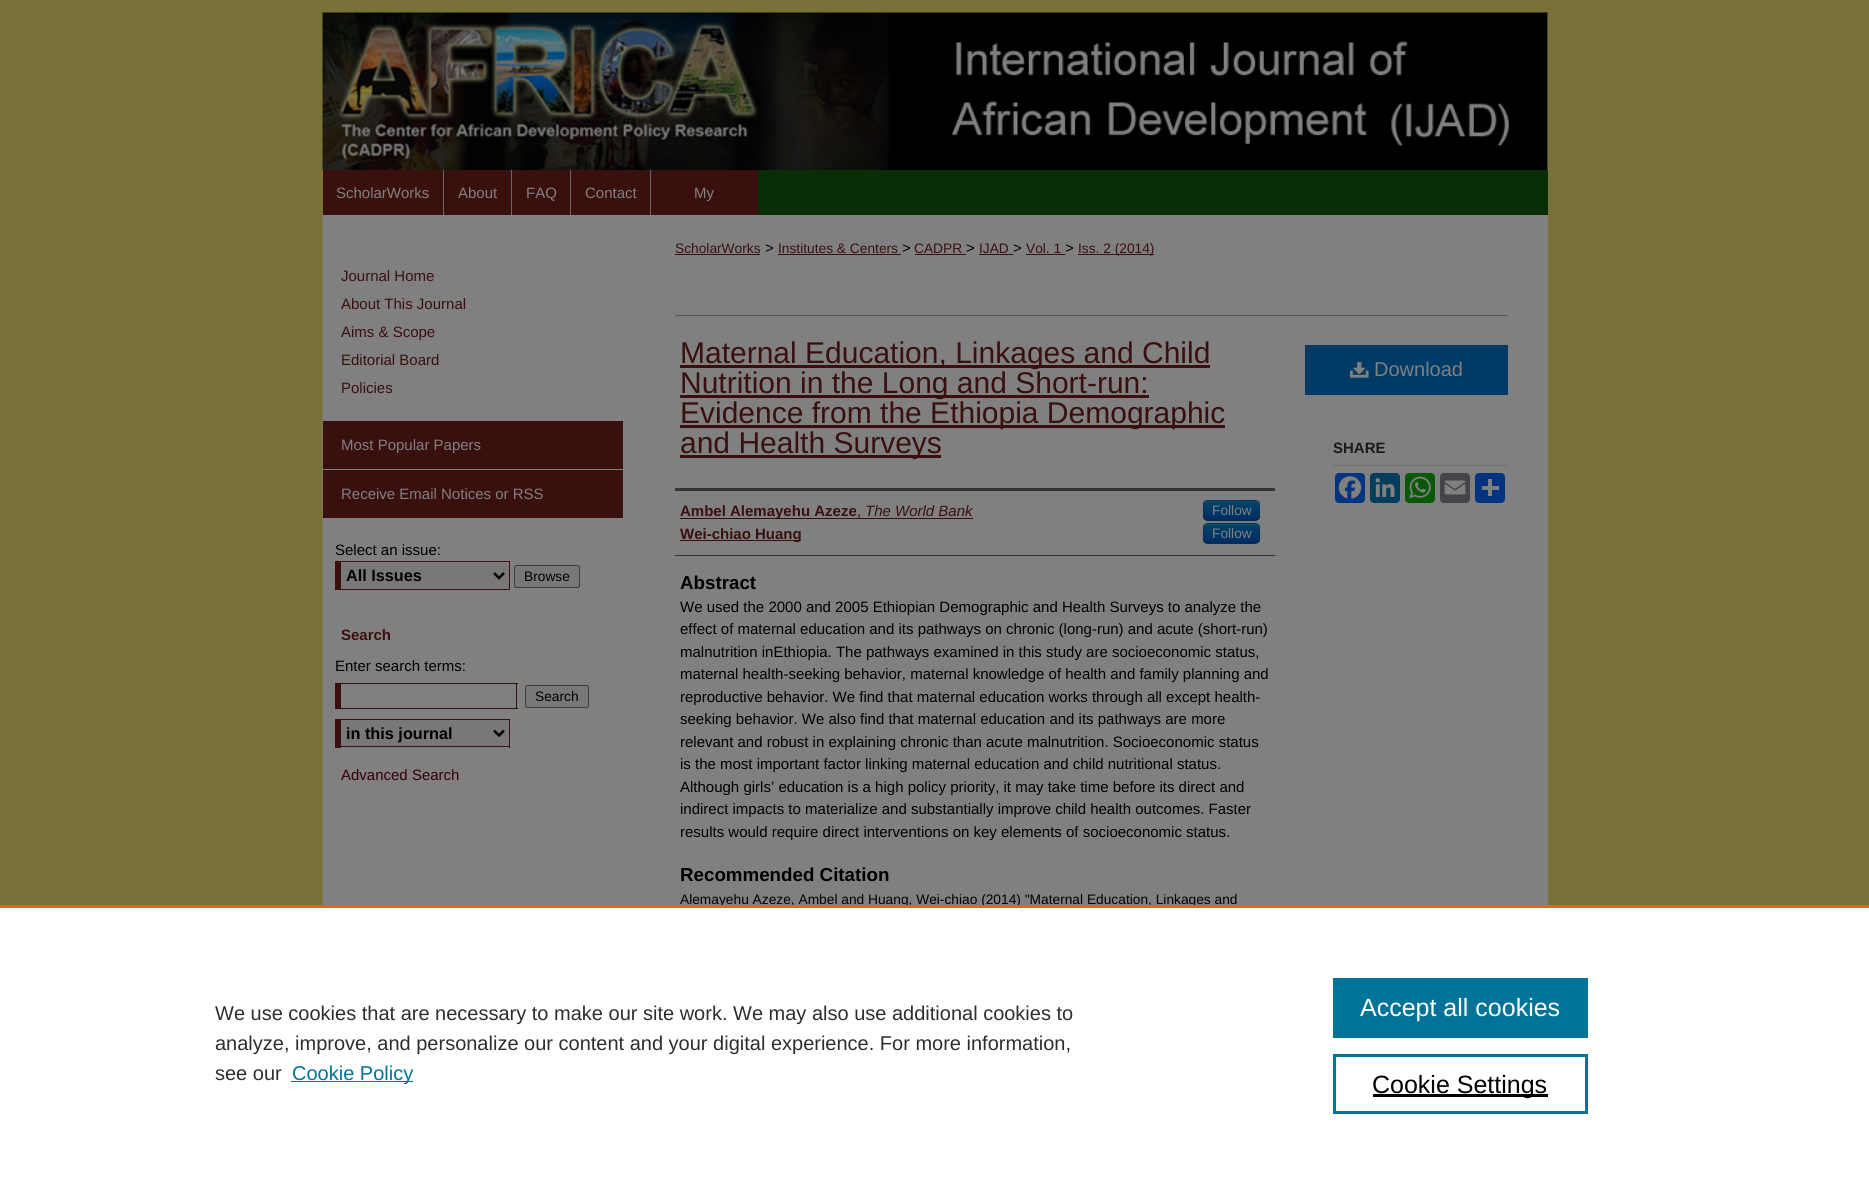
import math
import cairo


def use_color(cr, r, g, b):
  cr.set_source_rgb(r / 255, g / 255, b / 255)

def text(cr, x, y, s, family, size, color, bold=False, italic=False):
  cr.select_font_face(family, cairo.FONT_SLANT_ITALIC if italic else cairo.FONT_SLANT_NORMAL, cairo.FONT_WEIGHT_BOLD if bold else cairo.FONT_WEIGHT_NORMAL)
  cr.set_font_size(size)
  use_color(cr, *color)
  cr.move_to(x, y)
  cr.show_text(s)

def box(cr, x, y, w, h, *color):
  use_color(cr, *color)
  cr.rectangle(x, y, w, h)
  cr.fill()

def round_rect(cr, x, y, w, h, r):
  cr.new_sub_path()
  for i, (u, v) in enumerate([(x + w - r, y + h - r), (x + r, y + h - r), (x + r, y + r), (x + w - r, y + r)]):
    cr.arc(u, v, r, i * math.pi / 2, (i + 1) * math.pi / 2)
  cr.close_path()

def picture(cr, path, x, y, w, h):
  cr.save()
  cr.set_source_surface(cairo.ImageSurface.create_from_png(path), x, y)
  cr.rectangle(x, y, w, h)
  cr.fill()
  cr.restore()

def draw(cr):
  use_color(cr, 121, 114, 56)
  cr.paint()
  box(cr, 1547, 13, 1, 157, 128, 128, 128)
  picture(cr, "img_01.png", 322, 12, 1226, 158)
  box(cr, 758, 170, 790, 45, 8, 46, 7)
  box(cr, 323, 170, 120, 45, 58, 16, 15)
  box(cr, 443, 170, 1, 45, 103, 104, 106)
  box(cr, 444, 170, 126, 45, 58, 16, 15)
  box(cr, 511, 170, 1, 45, 103, 104, 106)
  box(cr, 570, 170, 1, 45, 103, 104, 106)
  box(cr, 571, 170, 79, 45, 58, 16, 15)
  box(cr, 650, 170, 1, 45, 103, 104, 106)
  box(cr, 651, 170, 107, 45, 58, 16, 15)
  box(cr, 323, 215, 1225, 690, 128, 128, 128)
  picture(cr, "img_02.png", 322, 215, 1, 690)
  box(cr, 323, 421, 300, 48, 58, 16, 15)
  box(cr, 323, 470, 300, 48, 58, 16, 15)
  box(cr, 341, 563, 168, 26, 120, 120, 120)
  box(cr, 335, 561, 175, 1, 58, 16, 15)
  box(cr, 509, 561, 1, 29, 58, 16, 15)
  box(cr, 335, 589, 175, 1, 58, 16, 15)
  box(cr, 335, 561, 6, 29, 58, 16, 15)
  cr.new_path()
  cr.move_to(494, 573)
  cr.line_to(499, 578)
  cr.line_to(504, 573)
  use_color(cr, 0, 0, 0)
  cr.set_line_width(2.5)
  cr.stroke()
  use_color(cr, 120, 120, 120)
  round_rect(cr, 514.5, 565.5, 65, 22, 2)
  cr.fill_preserve()
  use_color(cr, 59, 59, 59)
  cr.set_line_width(1)
  cr.stroke()
  box(cr, 335, 683, 183, 1, 58, 16, 15)
  box(cr, 516, 683, 1, 26, 58, 16, 15)
  box(cr, 335, 708, 183, 1, 58, 16, 15)
  box(cr, 335, 683, 6, 26, 58, 16, 15)
  use_color(cr, 120, 120, 120)
  round_rect(cr, 525.5, 685.5, 63, 22, 2)
  cr.fill_preserve()
  use_color(cr, 59, 59, 59)
  cr.stroke()
  box(cr, 341, 720, 168, 26, 120, 120, 120)
  box(cr, 335, 719, 175, 1, 58, 16, 15)
  box(cr, 509, 719, 1, 29, 58, 16, 15)
  box(cr, 335, 746, 175, 1, 58, 16, 15)
  box(cr, 335, 719, 6, 29, 58, 16, 15)
  cr.new_path()
  cr.move_to(494, 730.5)
  cr.line_to(499, 735.5)
  cr.line_to(504, 730.5)
  use_color(cr, 0, 0, 0)
  cr.set_line_width(2.5)
  cr.stroke()
  box(cr, 675, 254, 85, 1, 58, 16, 15)
  box(cr, 778, 254, 123, 1, 58, 16, 15)
  box(cr, 915, 254, 51, 1, 58, 16, 15)
  box(cr, 979, 254, 34, 1, 58, 16, 15)
  box(cr, 1026, 254, 39, 1, 58, 16, 15)
  box(cr, 1078, 254, 76, 1, 58, 16, 15)
  box(cr, 675, 315, 833, 1, 85, 85, 85)
  box(cr, 680, 365, 530, 3, 58, 16, 15)
  box(cr, 680, 395, 469, 3, 58, 16, 15)
  box(cr, 680, 425, 545, 3, 58, 16, 15)
  box(cr, 680, 455, 261, 3, 58, 16, 15)
  box(cr, 675, 488, 600, 3, 51, 51, 51)
  box(cr, 675, 555, 600, 1, 51, 51, 51)
  box(cr, 680, 518, 176, 1, 58, 16, 15)
  box(cr, 856, 518, 117, 1, 58, 16, 15)
  use_color(cr, 0, 58, 102)
  round_rect(cr, 1203, 500, 57, 21, 5)
  cr.fill()
  cr.save()
  round_rect(cr, 1203, 500, 57, 21, 5)
  cr.clip()
  gradient = cairo.LinearGradient(1231, 501, 1231, 520)
  gradient.add_color_stop_rgba(0, 0, 0.267, 0.4, 1)
  gradient.add_color_stop_rgba(1, 0, 0.169, 0.4, 1)
  cr.set_source(gradient)
  cr.rectangle(1203, 501, 57, 19)
  cr.fill()
  cr.restore()
  cr.set_source_rgba(0.502, 0.502, 0.502, 0.2)
  cr.new_path()
  cr.move_to(1208, 502)
  cr.line_to(1239, 502)
  cr.curve_to(1257, 502, 1259, 497, 1259, 516)
  cr.curve_to(1259, 512, 1261, 502, 1256, 501)
  cr.line_to(1216, 501)
  cr.curve_to(1206, 501, 1204, 499, 1204, 509)
  cr.line_to(1204, 518)
  cr.curve_to(1204, 514, 1202, 502, 1208, 502)
  cr.close_path()
  cr.fill()
  cr.new_path()
  cr.move_to(1258, 519.5)
  cr.curve_to(1257.5, 520, 1256, 520.5, 1255, 520.5)
  cr.line_to(1207.5, 520.5)
  cr.curve_to(1206.5, 520.5, 1205, 520, 1204.5, 519.5)
  cr.set_source_rgba(0, 0, 0, 0.25)
  cr.set_line_width(1.2)
  cr.stroke()
  cr.new_path()
  cr.move_to(1204.5, 519.5)
  cr.curve_to(1202, 517, 1203, 513.5, 1203, 510.5)
  cr.curve_to(1203, 499.5, 1204, 500.5, 1215.5, 500.5)
  cr.line_to(1247, 500.5)
  cr.curve_to(1258.5, 500.5, 1259.5, 499.5, 1259.5, 510.5)
  cr.curve_to(1259.5, 513.5, 1260.5, 517, 1258, 519.5)
  cr.set_source_rgba(0, 0, 0, 0.1)
  cr.stroke()
  box(cr, 680, 540, 121, 1, 58, 16, 15)
  use_color(cr, 0, 58, 102)
  round_rect(cr, 1203, 523, 57, 21, 5)
  cr.fill()
  cr.save()
  round_rect(cr, 1203, 523, 57, 21, 5)
  cr.clip()
  gradient = cairo.LinearGradient(1231, 524, 1231, 543)
  gradient.add_color_stop_rgba(0, 0, 0.267, 0.4, 1)
  gradient.add_color_stop_rgba(1, 0, 0.169, 0.4, 1)
  cr.set_source(gradient)
  cr.rectangle(1203, 524, 57, 19)
  cr.fill()
  cr.restore()
  cr.set_source_rgba(0.502, 0.502, 0.502, 0.2)
  cr.new_path()
  cr.move_to(1208, 525)
  cr.line_to(1252, 525)
  cr.curve_to(1259, 524, 1259, 527, 1259, 533)
  cr.line_to(1259, 540)
  cr.line_to(1259, 532)
  cr.curve_to(1259, 522, 1257, 524, 1247, 524)
  cr.line_to(1216, 524)
  cr.curve_to(1206, 524, 1204, 522, 1204, 532)
  cr.line_to(1204, 541)
  cr.curve_to(1204, 538, 1203, 528, 1205, 526)
  cr.close_path()
  cr.fill()
  cr.new_path()
  cr.move_to(1258, 542)
  cr.curve_to(1257.5, 542.5, 1256, 543, 1255, 543)
  cr.line_to(1207.5, 543)
  cr.curve_to(1206.5, 543, 1205, 542.5, 1204.5, 542)
  cr.set_source_rgba(0, 0, 0, 0.25)
  cr.stroke()
  cr.new_path()
  cr.move_to(1204.5, 542)
  cr.curve_to(1202, 539.5, 1203, 536, 1203, 533)
  cr.curve_to(1203, 522, 1204, 523, 1215.5, 523)
  cr.line_to(1247, 523)
  cr.curve_to(1258.5, 523, 1259.5, 522, 1259.5, 533)
  cr.curve_to(1259.5, 536, 1260.5, 539.5, 1258, 542)
  cr.set_source_rgba(0, 0, 0, 0.1)
  cr.stroke()
  box(cr, 1305, 345, 203, 50, 0, 58, 102)
  picture(cr, "img_03.png", 1350, 361, 19, 17)
  box(cr, 1333, 465, 175, 1, 111, 111, 111)
  use_color(cr, 4, 51, 128)
  round_rect(cr, 1335, 473, 30, 30, 4)
  cr.fill()
  picture(cr, "img_04.png", 1338, 476, 24, 23)
  use_color(cr, 0, 62, 91)
  round_rect(cr, 1370, 473, 30, 30, 4)
  cr.fill()
  picture(cr, "img_05.png", 1375, 478, 20, 19)
  use_color(cr, 9, 88, 5)
  round_rect(cr, 1405, 473, 30, 30, 4)
  cr.fill()
  picture(cr, "img_06.png", 1409, 476, 22, 23)
  use_color(cr, 68, 69, 72)
  round_rect(cr, 1440, 473, 30, 30, 4)
  cr.fill()
  picture(cr, "img_07.png", 1444, 480, 22, 15)
  use_color(cr, 1, 51, 128)
  round_rect(cr, 1475, 473, 30, 30, 4)
  cr.fill()
  box(cr, 1488, 479, 4, 17, 128, 128, 128)
  box(cr, 1482, 486, 17, 4, 128, 128, 128)
  box(cr, 0, 908, 1869, 271, 255, 255, 255)
  box(cr, 291, 1081, 122, 1, 0, 115, 152)
  box(cr, 1333, 978, 255, 60, 0, 115, 152)
  cr.rectangle(1334.5, 1055.5, 252, 57)
  cr.set_line_width(3)
  cr.stroke()
  box(cr, 1373, 1094, 175, 3, 0, 0, 0)
  text(cr, 336, 198, "ScholarWorks", "Liberation Sans", 15, (128, 128, 128))
  text(cr, 458, 198, "About", "Liberation Sans", 15, (128, 128, 128))
  text(cr, 526, 198, "FAQ", "Liberation Sans", 15, (128, 128, 128))
  text(cr, 585, 198, "Contact", "Liberation Sans", 15, (128, 128, 128))
  text(cr, 694, 198, "My", "Liberation Sans", 15, (128, 128, 128))
  text(cr, 341, 281, "Journal Home", "Liberation Sans", 15, (58, 16, 15))
  text(cr, 341, 309, "About This Journal", "Liberation Sans", 15, (58, 16, 15))
  text(cr, 341, 337, "Aims & Scope", "Liberation Sans", 15, (58, 16, 15))
  text(cr, 341, 365, "Editorial Board", "Liberation Sans", 15, (58, 16, 15))
  text(cr, 341, 393, "Policies", "Liberation Sans", 15, (58, 16, 15))
  text(cr, 341, 450, "Most Popular Papers", "Liberation Sans", 15, (128, 128, 128))
  text(cr, 341, 499, "Receive Email Notices or RSS", "Liberation Sans", 15, (128, 128, 128))
  text(cr, 335, 555, "Select an issue:", "Liberation Sans", 15, (0, 0, 0))
  text(cr, 346, 581, "All Issues", "Liberation Sans", 16.25, (0, 0, 0), bold=True)
  text(cr, 524, 581, "Browse", "Liberation Sans", 13.75, (0, 0, 0))
  text(cr, 341, 640, "Search", "Liberation Sans", 15, (58, 16, 15), bold=True)
  text(cr, 335, 671, "Enter search terms:", "Liberation Sans", 15, (0, 0, 0))
  text(cr, 535, 701, "Search", "Liberation Sans", 13.75, (0, 0, 0))
  text(cr, 346, 739, "in this journal", "Liberation Sans", 16.25, (0, 0, 0), bold=True)
  text(cr, 341, 780, "Advanced Search", "Liberation Sans", 15, (54, 0, 7))
  text(cr, 675, 253, "ScholarWorks", "Liberation Sans", 13.75, (58, 16, 15))
  text(cr, 765, 253, ">", "Liberation Sans", 15, (0, 0, 0))
  text(cr, 778, 253, "Institutes & Centers", "Liberation Sans", 13.75, (58, 16, 15))
  text(cr, 902, 253, ">", "Liberation Sans", 15, (0, 0, 0))
  text(cr, 914, 253, "CADPR", "Liberation Sans", 13.75, (58, 16, 15))
  text(cr, 966, 253, ">", "Liberation Sans", 15, (0, 0, 0))
  text(cr, 979, 253, "IJAD", "Liberation Sans", 13.75, (58, 16, 15))
  text(cr, 1013, 253, ">", "Liberation Sans", 15, (0, 0, 0))
  text(cr, 1026, 253, "Vol. 1", "Liberation Sans", 13.75, (58, 16, 15))
  text(cr, 1065, 253, ">", "Liberation Sans", 15, (0, 0, 0))
  text(cr, 1078, 253, "Iss. 2 (2014)", "Liberation Sans", 13.75, (58, 16, 15))
  text(cr, 680, 363, "Maternal Education, Linkages and Child", "Liberation Sans", 30, (58, 16, 15))
  text(cr, 680, 393, "Nutrition in the Long and Short-run:", "Liberation Sans", 30, (58, 16, 15))
  text(cr, 680, 423, "Evidence from the Ethiopia Demographic", "Liberation Sans", 30, (58, 16, 15))
  text(cr, 680, 453, "and Health Surveys", "Liberation Sans", 30, (58, 16, 15))
  text(cr, 680, 516, "Ambel Alemayehu Azeze", "Liberation Sans", 15, (58, 16, 15), bold=True)
  text(cr, 857, 516, ",", "Liberation Sans", 15, (58, 16, 15))
  text(cr, 865, 516, "The World Bank", "Liberation Sans", 15, (58, 16, 15), italic=True)
  text(cr, 1212, 515, "Follow", "Liberation Sans", 13.75, (128, 128, 128))
  text(cr, 680, 539, "Wei-chiao Huang", "Liberation Sans", 15, (58, 16, 15), bold=True)
  text(cr, 1212, 538, "Follow", "Liberation Sans", 13.75, (128, 128, 128))
  text(cr, 680, 589, "Abstract", "Liberation Sans", 18.75, (0, 0, 0), bold=True)
  text(cr, 680, 612, "We used the 2000 and 2005 Ethiopian Demographic and Health Surveys to analyze the", "Liberation Sans", 15, (0, 0, 0))
  text(cr, 680, 634, "effect of maternal education and its pathways on chronic (long-run) and acute (short-run)", "Liberation Sans", 15, (0, 0, 0))
  text(cr, 680, 657, "malnutrition inEthiopia. The pathways examined in this study are socioeconomic status,", "Liberation Sans", 15, (0, 0, 0))
  text(cr, 680, 679, "maternal health-seeking behavior, maternal knowledge of health and family planning and", "Liberation Sans", 15, (0, 0, 0))
  text(cr, 680, 702, "reproductive behavior. We find that maternal education works through all except health-", "Liberation Sans", 15, (0, 0, 0))
  text(cr, 680, 724, "seeking behavior. We also find that maternal education and its pathways are more", "Liberation Sans", 15, (0, 0, 0))
  text(cr, 680, 747, "relevant and robust in explaining chronic than acute malnutrition. Socioeconomic status", "Liberation Sans", 15, (0, 0, 0))
  text(cr, 680, 769, "is the most important factor linking maternal education and child nutritional status.", "Liberation Sans", 15, (0, 0, 0))
  text(cr, 680, 792, "Although girls’ education is a high policy priority, it may take time before its direct and", "Liberation Sans", 15, (0, 0, 0))
  text(cr, 680, 814, "indirect impacts to materialize and substantially improve child health outcomes. Faster", "Liberation Sans", 15, (0, 0, 0))
  text(cr, 680, 837, "results would require direct interventions on key elements of socioeconomic status.", "Liberation Sans", 15, (0, 0, 0))
  text(cr, 680, 881, "Recommended Citation", "Liberation Sans", 18.75, (0, 0, 0), bold=True)
  text(cr, 680, 904, "Alemayehu Azeze, Ambel and Huang, Wei-chiao (2014) \"Maternal Education, Linkages and", "Liberation Sans", 13.75, (0, 0, 0))
  text(cr, 1374, 376, "Download", "Liberation Sans", 20, (128, 128, 128))
  text(cr, 1333, 453, "SHARE", "Liberation Sans", 15, (26, 26, 26), bold=True)
  box(cr, 0, 905, 1869, 3, 235, 101, 0)
  text(cr, 215, 1020, "We use cookies that are necessary to make our site work. We may also use additional cookies to", "Liberation Sans", 20, (46, 46, 46))
  text(cr, 215, 1050, "analyze, improve, and personalize our content and your digital experience. For more information,", "Liberation Sans", 20, (46, 46, 46))
  text(cr, 215, 1080, "see our", "Liberation Sans", 20, (46, 46, 46))
  text(cr, 292, 1080, "Cookie Policy", "Liberation Sans", 20, (0, 115, 152))
  text(cr, 1360, 1016, "Accept all cookies", "Liberation Sans", 25, (255, 255, 255))
  text(cr, 1372, 1093, "Cookie Settings", "Liberation Sans", 25, (0, 0, 0))


surface = cairo.ImageSurface(cairo.FORMAT_RGB24, 1869, 1179)
cr = cairo.Context(surface)
options = cairo.FontOptions()
options.set_hint_metrics(cairo.HINT_METRICS_OFF)
options.set_hint_style(cairo.HINT_STYLE_NONE)
cr.set_font_options(options)
cr.set_miter_limit(4)
draw(cr)
surface.write_to_png("out.png")
